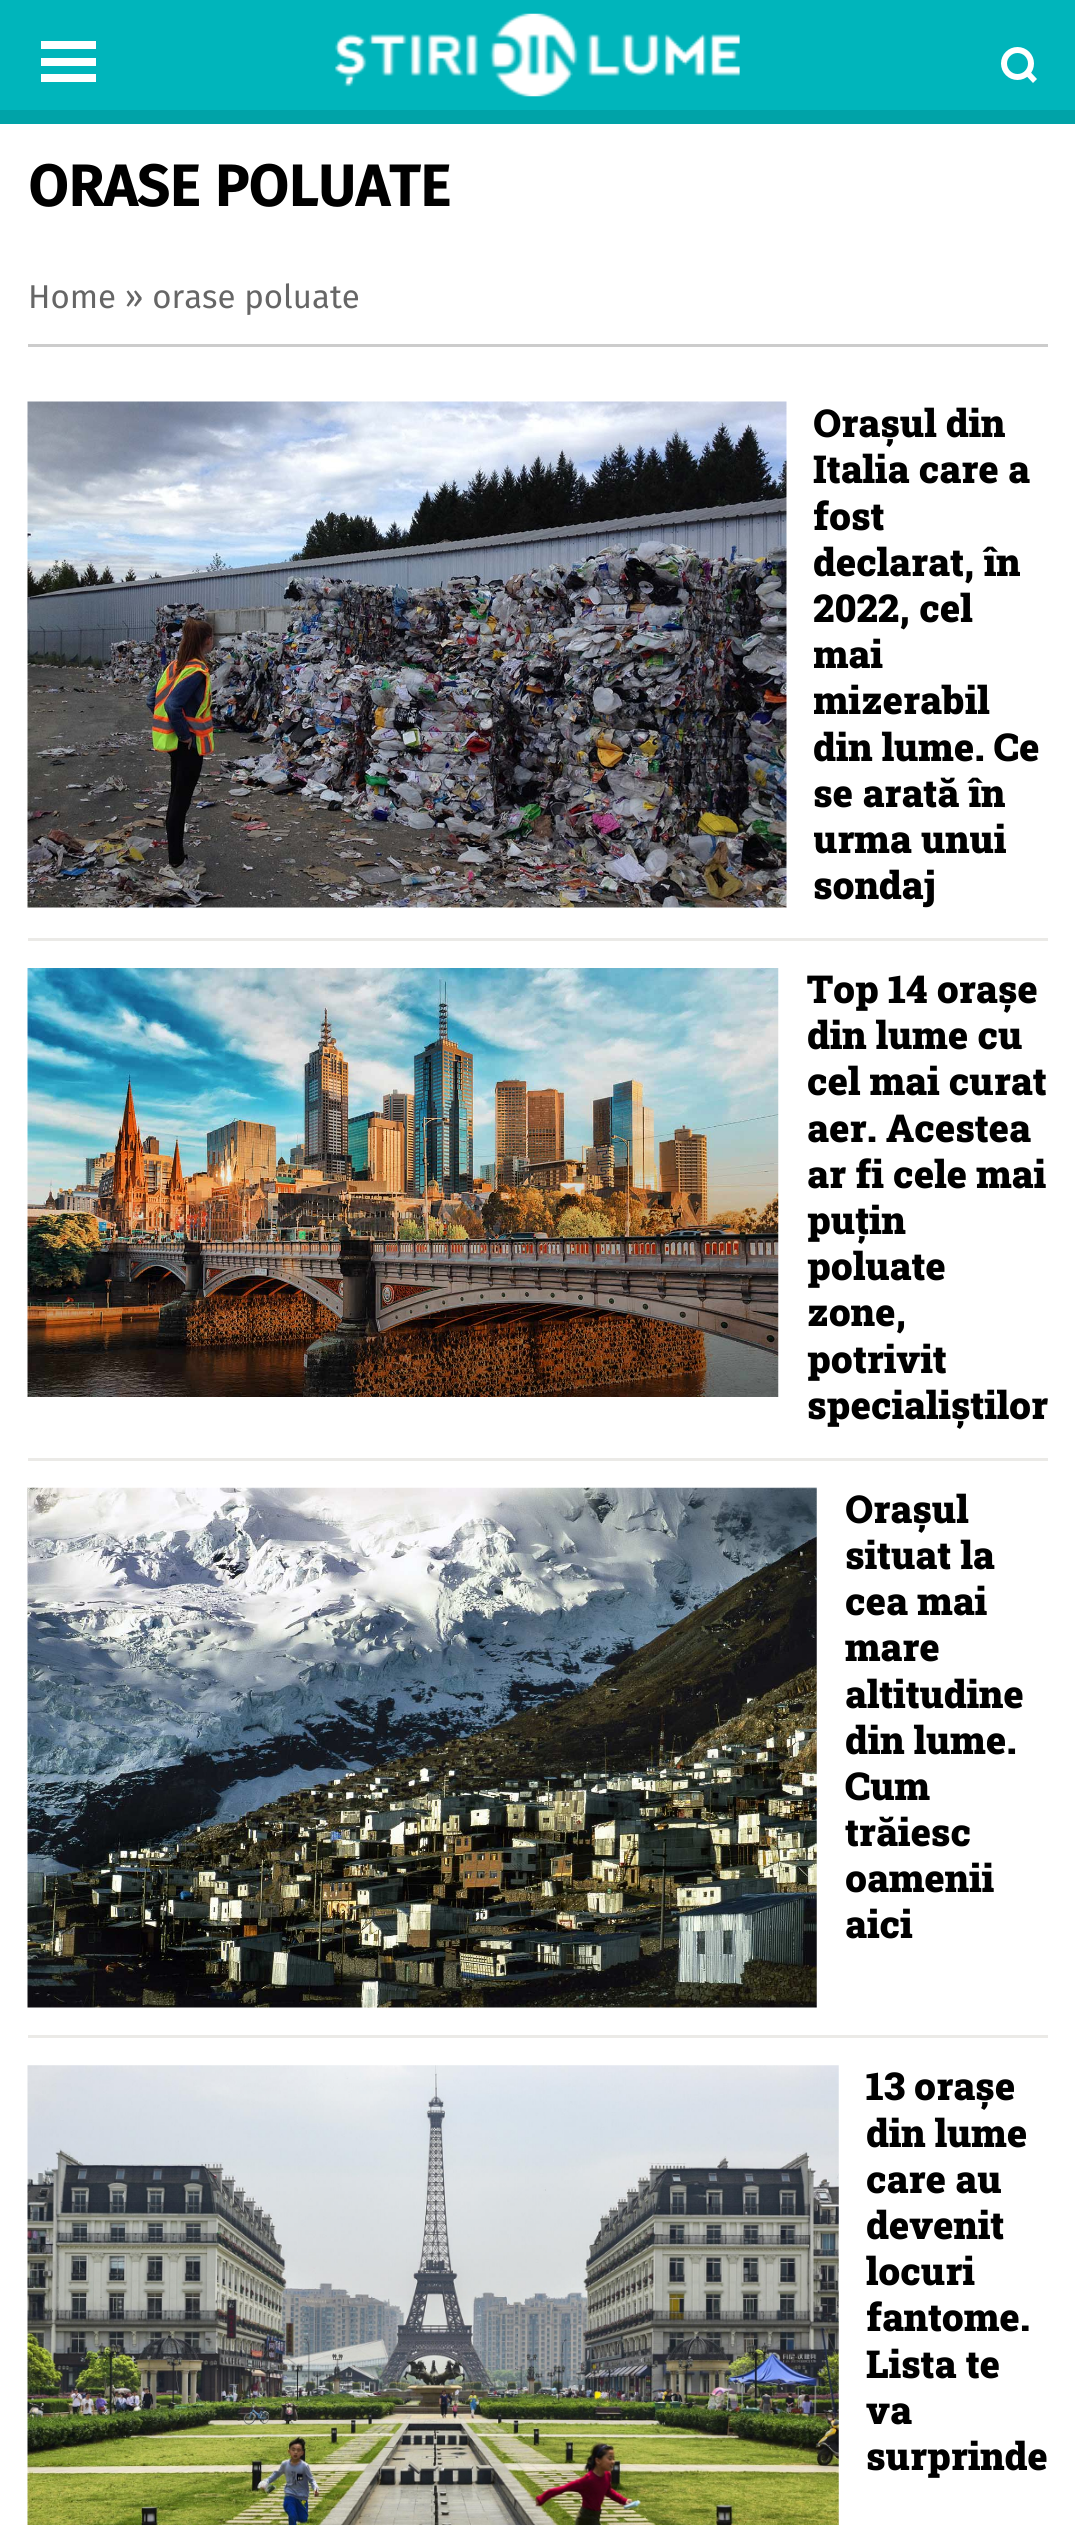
import math
import cairo


def use_color(cr, r, g, b):
  cr.set_source_rgb(r / 255, g / 255, b / 255)

def text(cr, x, y, s, family, size, color, bold=False, italic=False):
  cr.select_font_face(family, cairo.FONT_SLANT_ITALIC if italic else cairo.FONT_SLANT_NORMAL, cairo.FONT_WEIGHT_BOLD if bold else cairo.FONT_WEIGHT_NORMAL)
  cr.set_font_size(size)
  use_color(cr, *color)
  cr.move_to(x, y)
  cr.show_text(s)

def box(cr, x, y, w, h, *color):
  use_color(cr, *color)
  cr.rectangle(x, y, w, h)
  cr.fill()

def picture(cr, path, x, y, w, h):
  cr.save()
  cr.set_source_surface(cairo.ImageSurface.create_from_png(path), x, y)
  cr.rectangle(x, y, w, h)
  cr.fill()
  cr.restore()

def draw(cr):
  use_color(cr, 255, 255, 255)
  cr.paint()
  box(cr, 0, 0, 1075, 110, 0, 181, 187)
  box(cr, 41, 58, 55, 8, 255, 255, 255)
  box(cr, 41, 41, 55, 8, 255, 255, 255)
  box(cr, 41, 74, 55, 8, 255, 255, 255)
  picture(cr, "img_01.png", 335, 13, 405, 84)
  cr.arc(1017.5, 63.5, 13.5, 0, 2 * math.pi)
  cr.set_line_width(6)
  cr.stroke()
  cr.new_path()
  cr.move_to(1025.5, 75)
  cr.line_to(1029.5, 71)
  cr.line_to(1037, 79)
  cr.line_to(1033, 83)
  cr.close_path()
  cr.fill()
  box(cr, 0, 110, 1075, 14, 0, 163, 168)
  box(cr, 28, 344, 1020, 3, 204, 204, 204)
  box(cr, 28, 938, 1020, 3, 235, 234, 231)
  picture(cr, "img_02.png", 27, 401, 760, 507)
  box(cr, 28, 1458, 1020, 3, 235, 234, 231)
  picture(cr, "img_03.png", 27, 968, 752, 429)
  box(cr, 28, 2035, 1020, 3, 235, 234, 231)
  picture(cr, "img_04.png", 27, 1487, 790, 521)
  picture(cr, "img_05.png", 27, 2065, 812, 460)
  text(cr, 28, 206, "ORASE POLUATE", "Fira Sans", 57.75, (0, 0, 0), bold=True)
  text(cr, 28, 308, "Home » orase poluate", "Fira Sans", 33, (102, 102, 102))
  text(cr, 813, 437, "Orașul din", "Roboto Slab Black", 38.5, (0, 0, 0))
  text(cr, 813, 483, "Italia care a", "Roboto Slab Black", 38.5, (0, 0, 0))
  text(cr, 813, 530, "fost", "Roboto Slab Black", 38.5, (0, 0, 0))
  text(cr, 813, 576, "declarat, în", "Roboto Slab Black", 38.5, (0, 0, 0))
  text(cr, 813, 622, "2022, cel", "Roboto Slab Black", 38.5, (0, 0, 0))
  cr.save()
  cr.rectangle(814, 402, 234, 508)
  cr.clip()
  text(cr, 813, 668, "mai", "Roboto Slab Black", 38.5, (0, 0, 0))
  text(cr, 813, 714, "mizerabil", "Roboto Slab Black", 38.5, (0, 0, 0))
  cr.restore()
  text(cr, 813, 761, "din lume. Ce", "Roboto Slab Black", 38.5, (0, 0, 0))
  text(cr, 813, 807, "se arată în", "Roboto Slab Black", 38.5, (0, 0, 0))
  cr.save()
  cr.rectangle(814, 402, 234, 508)
  cr.clip()
  text(cr, 813, 853, "urma unui", "Roboto Slab Black", 38.5, (0, 0, 0))
  cr.restore()
  text(cr, 813, 899, "sondaj", "Roboto Slab Black", 38.5, (0, 0, 0))
  text(cr, 807, 1003, "Top 14 orașe", "Roboto Slab Black", 38.5, (0, 0, 0))
  text(cr, 807, 1049, "din lume cu", "Roboto Slab Black", 38.5, (0, 0, 0))
  text(cr, 807, 1095, "cel mai curat", "Roboto Slab Black", 38.5, (0, 0, 0))
  text(cr, 807, 1142, "aer. Acestea", "Roboto Slab Black", 38.5, (0, 0, 0))
  text(cr, 807, 1188, "ar fi cele mai", "Roboto Slab Black", 38.5, (0, 0, 0))
  text(cr, 807, 1234, "puțin", "Roboto Slab Black", 38.5, (0, 0, 0))
  text(cr, 807, 1280, "poluate", "Roboto Slab Black", 38.5, (0, 0, 0))
  text(cr, 807, 1326, "zone,", "Roboto Slab Black", 38.5, (0, 0, 0))
  text(cr, 807, 1373, "potrivit", "Roboto Slab Black", 38.5, (0, 0, 0))
  text(cr, 807, 1419, "specialiștilor", "Roboto Slab Black", 38.5, (0, 0, 0))
  text(cr, 845, 1523, "Orașul", "Roboto Slab Black", 38.5, (0, 0, 0))
  text(cr, 845, 1569, "situat la", "Roboto Slab Black", 38.5, (0, 0, 0))
  text(cr, 845, 1615, "cea mai", "Roboto Slab Black", 38.5, (0, 0, 0))
  text(cr, 845, 1661, "mare", "Roboto Slab Black", 38.5, (0, 0, 0))
  text(cr, 845, 1708, "altitudine", "Roboto Slab Black", 38.5, (0, 0, 0))
  text(cr, 845, 1754, "din lume.", "Roboto Slab Black", 38.5, (0, 0, 0))
  text(cr, 845, 1800, "Cum", "Roboto Slab Black", 38.5, (0, 0, 0))
  text(cr, 845, 1846, "trăiesc", "Roboto Slab Black", 38.5, (0, 0, 0))
  text(cr, 845, 1892, "oamenii", "Roboto Slab Black", 38.5, (0, 0, 0))
  text(cr, 845, 1938, "aici", "Roboto Slab Black", 38.5, (0, 0, 0))
  text(cr, 866, 2100, "13 orașe", "Roboto Slab Black", 38.5, (0, 0, 0))
  text(cr, 866, 2147, "din lume", "Roboto Slab Black", 38.5, (0, 0, 0))
  text(cr, 866, 2193, "care au", "Roboto Slab Black", 38.5, (0, 0, 0))
  text(cr, 866, 2239, "devenit", "Roboto Slab Black", 38.5, (0, 0, 0))
  text(cr, 866, 2285, "locuri", "Roboto Slab Black", 38.5, (0, 0, 0))
  text(cr, 866, 2331, "fantome.", "Roboto Slab Black", 38.5, (0, 0, 0))
  text(cr, 866, 2378, "Lista te", "Roboto Slab Black", 38.5, (0, 0, 0))
  text(cr, 866, 2424, "va", "Roboto Slab Black", 38.5, (0, 0, 0))
  text(cr, 866, 2470, "surprinde", "Roboto Slab Black", 38.5, (0, 0, 0))


surface = cairo.ImageSurface(cairo.FORMAT_RGB24, 1075, 2525)
cr = cairo.Context(surface)
options = cairo.FontOptions()
options.set_hint_metrics(cairo.HINT_METRICS_OFF)
options.set_hint_style(cairo.HINT_STYLE_NONE)
cr.set_font_options(options)
cr.set_miter_limit(4)
draw(cr)
surface.write_to_png("out.png")
